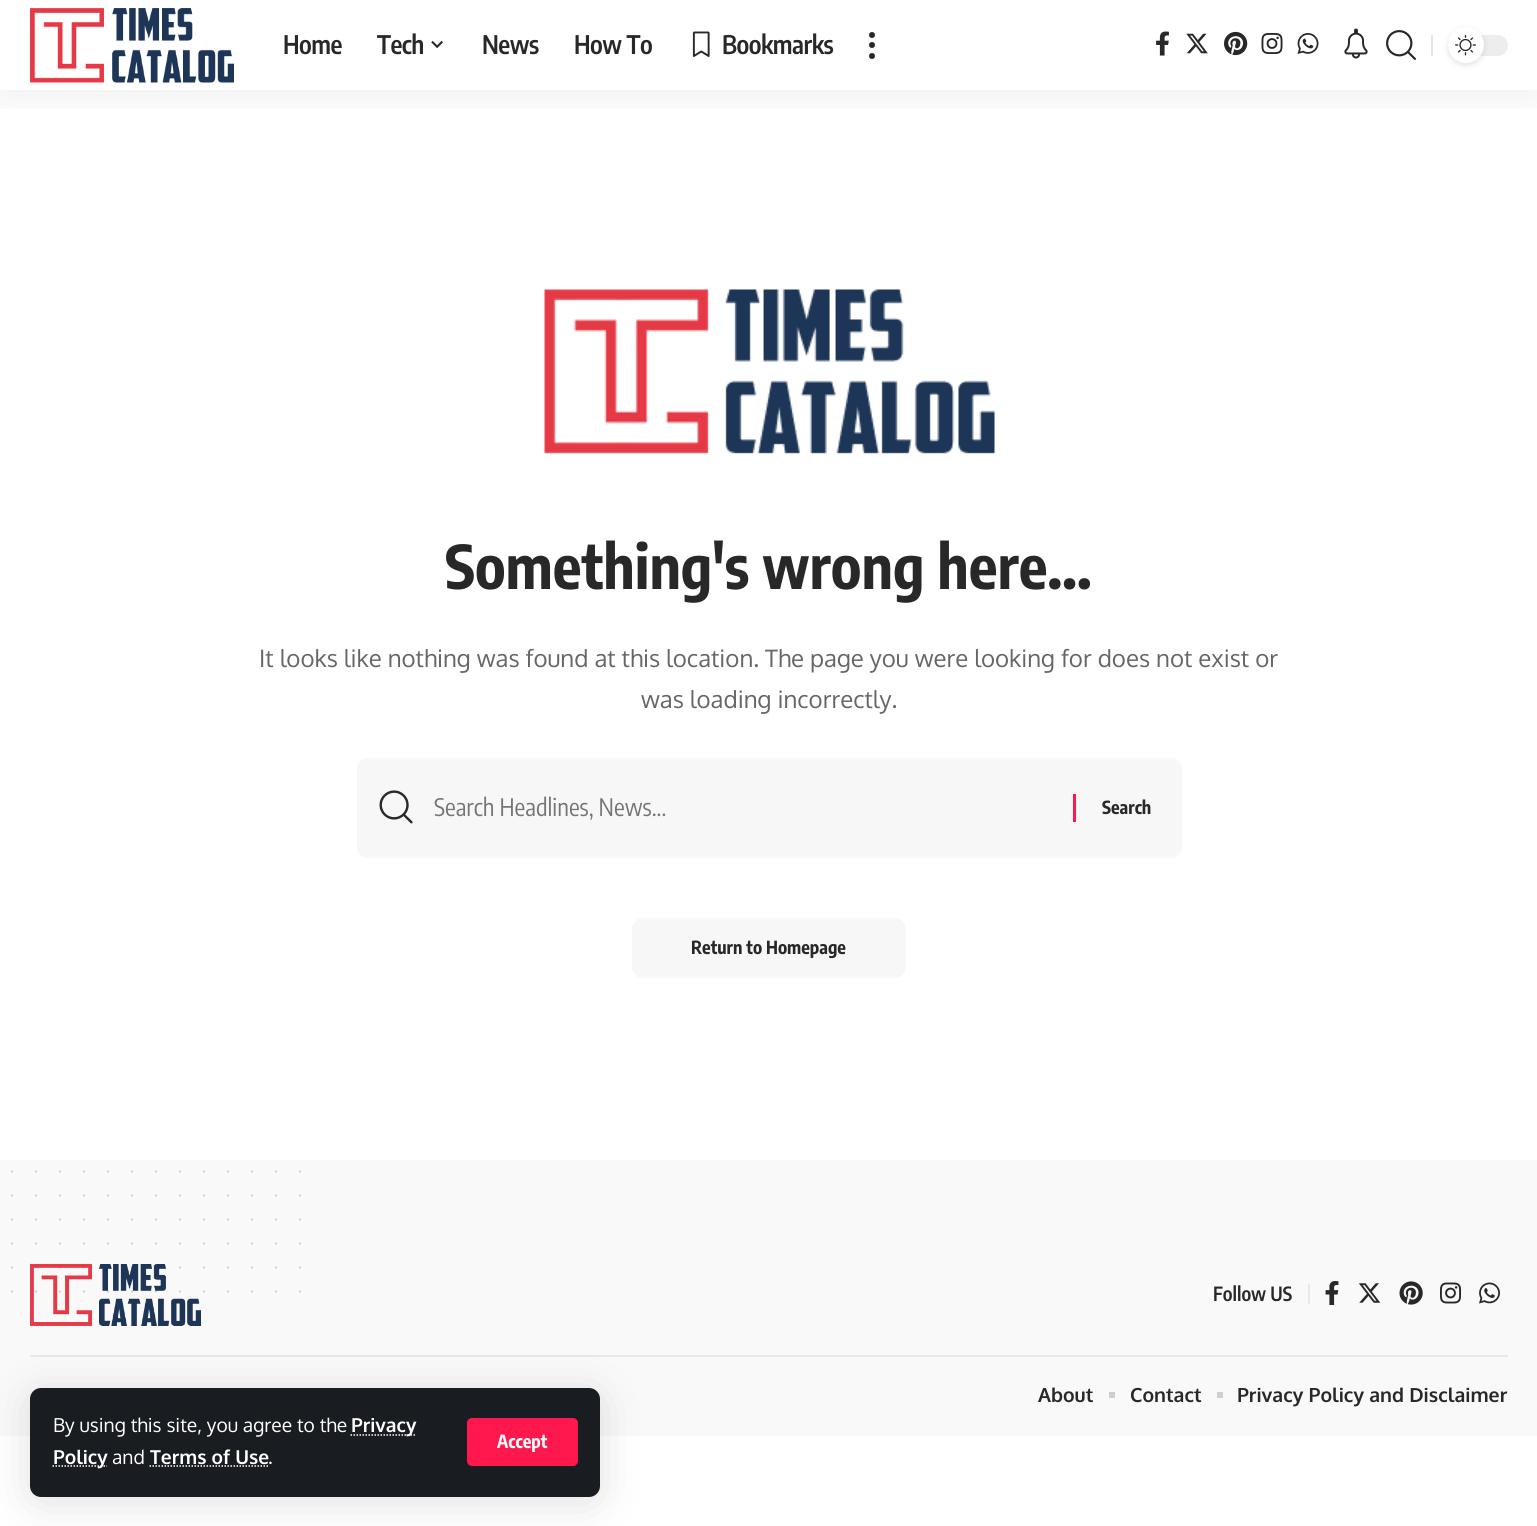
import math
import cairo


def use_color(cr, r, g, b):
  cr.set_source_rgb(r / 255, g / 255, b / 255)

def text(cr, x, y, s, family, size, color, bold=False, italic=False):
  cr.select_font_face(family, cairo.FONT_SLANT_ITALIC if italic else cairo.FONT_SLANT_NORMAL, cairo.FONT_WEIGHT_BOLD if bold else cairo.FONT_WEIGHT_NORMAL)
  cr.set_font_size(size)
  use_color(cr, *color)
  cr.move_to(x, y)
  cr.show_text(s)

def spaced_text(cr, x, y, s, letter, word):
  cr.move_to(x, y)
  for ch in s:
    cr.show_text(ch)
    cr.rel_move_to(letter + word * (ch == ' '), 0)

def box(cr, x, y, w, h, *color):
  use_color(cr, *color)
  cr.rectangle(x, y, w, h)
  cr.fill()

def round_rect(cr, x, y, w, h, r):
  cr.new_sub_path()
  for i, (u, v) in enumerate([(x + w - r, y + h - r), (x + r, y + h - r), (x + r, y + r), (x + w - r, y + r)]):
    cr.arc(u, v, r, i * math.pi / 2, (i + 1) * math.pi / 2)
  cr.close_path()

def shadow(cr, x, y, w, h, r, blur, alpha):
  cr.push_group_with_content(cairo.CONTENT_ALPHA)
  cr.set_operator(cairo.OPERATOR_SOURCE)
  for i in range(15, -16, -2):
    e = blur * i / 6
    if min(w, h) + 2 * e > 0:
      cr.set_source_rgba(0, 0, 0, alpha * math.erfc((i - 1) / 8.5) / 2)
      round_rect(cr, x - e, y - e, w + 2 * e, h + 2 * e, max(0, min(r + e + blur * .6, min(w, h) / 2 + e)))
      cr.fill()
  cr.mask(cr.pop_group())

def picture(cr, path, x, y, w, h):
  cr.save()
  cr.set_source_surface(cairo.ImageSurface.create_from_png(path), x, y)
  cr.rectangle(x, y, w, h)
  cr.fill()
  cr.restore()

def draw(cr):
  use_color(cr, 255, 255, 255)
  cr.paint()
  cr.save()
  cr.rectangle(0, 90, 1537, 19)
  cr.clip()
  use_color(cr, 0, 0, 0)
  shadow(cr, 0, 6, 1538, 90, 0, 22.5, 0.07)
  cr.restore()
  picture(cr, "img_01.png", 30, 8, 204, 75)
  picture(cr, "img_02.png", 431, 40, 12, 9)
  picture(cr, "img_03.png", 692, 31, 18, 26)
  use_color(cr, 40, 40, 40)
  cr.arc(872, 35, 3, 0, 2 * math.pi)
  cr.fill()
  cr.arc(872, 45, 3, 0, 2 * math.pi)
  cr.fill()
  cr.arc(872, 56, 3, 0, 2 * math.pi)
  cr.fill()
  picture(cr, "img_04.png", 1156, 31, 13, 25)
  picture(cr, "img_05.png", 1186, 33, 22, 21)
  picture(cr, "img_06.png", 1224, 31, 24, 25)
  picture(cr, "img_07.png", 1261, 33, 22, 21)
  picture(cr, "img_08.png", 1297, 33, 22, 21)
  picture(cr, "img_09.png", 1344, 28, 24, 31)
  picture(cr, "img_10.png", 1386, 30, 30, 30)
  box(cr, 1431, 35, 2, 21, 228, 228, 228)
  use_color(cr, 237, 237, 237)
  round_rect(cr, 1448, 35, 60, 21, 10.5)
  cr.fill()
  use_color(cr, 0, 0, 0)
  shadow(cr, 1448, 29, 36, 36, 18, 3, 0.12)
  use_color(cr, 255, 255, 255)
  cr.arc(1466, 45, 18, 0, 2 * math.pi)
  cr.fill()
  picture(cr, "img_11.png", 1455, 35, 21, 21)
  box(cr, 0, 1160, 1537, 276, 249, 249, 249)
  cr.new_path()
  cr.move_to(12, 1267.5)
  cr.line_to(300.3, 1267.5)
  use_color(cr, 207, 207, 207)
  cr.set_line_width(2.2)
  cr.set_line_cap(cairo.LINE_CAP_ROUND)
  cr.set_dash([0, 24])
  cr.stroke()
  cr.new_path()
  cr.move_to(12, 1291.5)
  cr.line_to(300.3, 1291.5)
  cr.stroke()
  picture(cr, "img_14.png", 30, 1264, 171, 62)
  box(cr, 30, 1355, 1478, 2, 232, 232, 232)
  use_color(cr, 0, 0, 0)
  shadow(cr, 30, 1394, 570, 109, 11, 22.5, 0.12)
  use_color(cr, 25, 28, 32)
  round_rect(cr, 30, 1388, 570, 109, 11)
  cr.fill()
  cr.new_path()
  cr.move_to(350.5, 1435)
  cr.line_to(416, 1435)
  use_color(cr, 255, 255, 255)
  cr.set_line_width(1.5)
  cr.set_line_cap(cairo.LINE_CAP_BUTT)
  cr.set_dash([1.5, 1.5])
  cr.stroke()
  cr.new_path()
  cr.move_to(52.5, 1466)
  cr.line_to(107, 1466)
  cr.stroke()
  cr.new_path()
  cr.move_to(149.5, 1466)
  cr.line_to(268.5, 1466)
  cr.stroke()
  use_color(cr, 255, 24, 78)
  round_rect(cr, 467, 1418, 111, 48, 5)
  cr.fill()
  picture(cr, "img_12.png", 544, 289, 451, 165)
  use_color(cr, 247, 247, 247)
  round_rect(cr, 357, 758, 825, 100, 11)
  cr.fill()
  picture(cr, "img_13.png", 379, 790, 34, 34)
  box(cr, 1073, 794, 3, 28, 255, 24, 78)
  use_color(cr, 247, 247, 247)
  round_rect(cr, 632, 918, 274, 60, 11)
  cr.fill()
  cr.new_path()
  cr.move_to(12, 1171.5)
  cr.line_to(300.3, 1171.5)
  use_color(cr, 207, 207, 207)
  cr.set_line_width(2.2)
  cr.set_line_cap(cairo.LINE_CAP_ROUND)
  cr.set_dash([0, 24])
  cr.stroke()
  cr.new_path()
  cr.move_to(12, 1195.5)
  cr.line_to(300.3, 1195.5)
  cr.stroke()
  cr.new_path()
  cr.move_to(12, 1219.5)
  cr.line_to(300.3, 1219.5)
  cr.stroke()
  cr.new_path()
  cr.move_to(12, 1243.5)
  cr.line_to(300.3, 1243.5)
  cr.stroke()
  box(cr, 1308, 1284, 2, 20, 232, 232, 232)
  picture(cr, "img_15.png", 1325, 1281, 14, 24)
  picture(cr, "img_16.png", 1358, 1283, 23, 20)
  picture(cr, "img_17.png", 1399, 1281, 24, 24)
  picture(cr, "img_18.png", 1440, 1282, 21, 22)
  picture(cr, "img_19.png", 1479, 1282, 21, 22)
  box(cr, 1109, 1392, 6, 6, 207, 207, 207)
  box(cr, 1217, 1392, 6, 6, 207, 207, 207)
  cr.select_font_face("Encode Sans Condensed SemiBold")
  cr.set_font_size(25.5)
  use_color(cr, 40, 40, 40)
  spaced_text(cr, 283, 54, "Home", -0.5, 0)
  spaced_text(cr, 377, 54, "Tech", -0.5, 0)
  spaced_text(cr, 482, 54, "News", -0.5, 0)
  spaced_text(cr, 574, 54, "How To", -0.5, 0)
  spaced_text(cr, 722, 54, "Bookmarks", -0.5, 0)
  text(cr, 53, 1432, "By using this site, you agree to the", "Oxygen", 19.25, (255, 255, 255))
  text(cr, 351, 1432, "Privacy", "Oxygen", 19.25, (255, 255, 255), bold=True)
  text(cr, 53, 1464, "Policy", "Oxygen", 19.25, (255, 255, 255), bold=True)
  text(cr, 112, 1464, "and", "Oxygen", 19.25, (255, 255, 255))
  text(cr, 150, 1464, "Terms of Use", "Oxygen", 19.25, (255, 255, 255), bold=True)
  text(cr, 268, 1464, ".", "Oxygen", 19.25, (255, 255, 255))
  text(cr, 497, 1448, "Accept", "Encode Sans Condensed", 18, (255, 255, 255), bold=True)
  text(cr, 445, 589, "Something's wrong here...", "Encode Sans Condensed", 60, (40, 40, 40), bold=True)
  text(cr, 259, 667, "It looks like nothing was found at this location. The page you were looking for does not exist or", "Oxygen", 24, (102, 102, 102))
  text(cr, 641, 708, "was loading incorrectly.", "Oxygen", 24, (102, 102, 102))
  text(cr, 434, 816, "Search Headlines, News...", "Encode Sans Condensed", 24, (117, 117, 117))
  text(cr, 1102, 814, "Search", "Encode Sans Condensed", 18, (40, 40, 40), bold=True)
  text(cr, 691, 954, "Return to Homepage", "Encode Sans Condensed", 18, (40, 40, 40), bold=True)
  text(cr, 1213, 1301, "Follow US", "Encode Sans Condensed SemiBold", 19.5, (40, 40, 40))
  text(cr, 1038, 1402, "About", "Oxygen", 19.5, (40, 40, 40), bold=True)
  text(cr, 1130, 1402, "Contact", "Oxygen", 19.5, (40, 40, 40), bold=True)
  text(cr, 1237, 1402, "Privacy Policy and Disclaimer", "Oxygen", 19.5, (40, 40, 40), bold=True)


surface = cairo.ImageSurface(cairo.FORMAT_RGB24, 1537, 1526)
cr = cairo.Context(surface)
options = cairo.FontOptions()
options.set_hint_metrics(cairo.HINT_METRICS_OFF)
options.set_hint_style(cairo.HINT_STYLE_NONE)
cr.set_font_options(options)
cr.set_miter_limit(4)
draw(cr)
surface.write_to_png("out.png")
